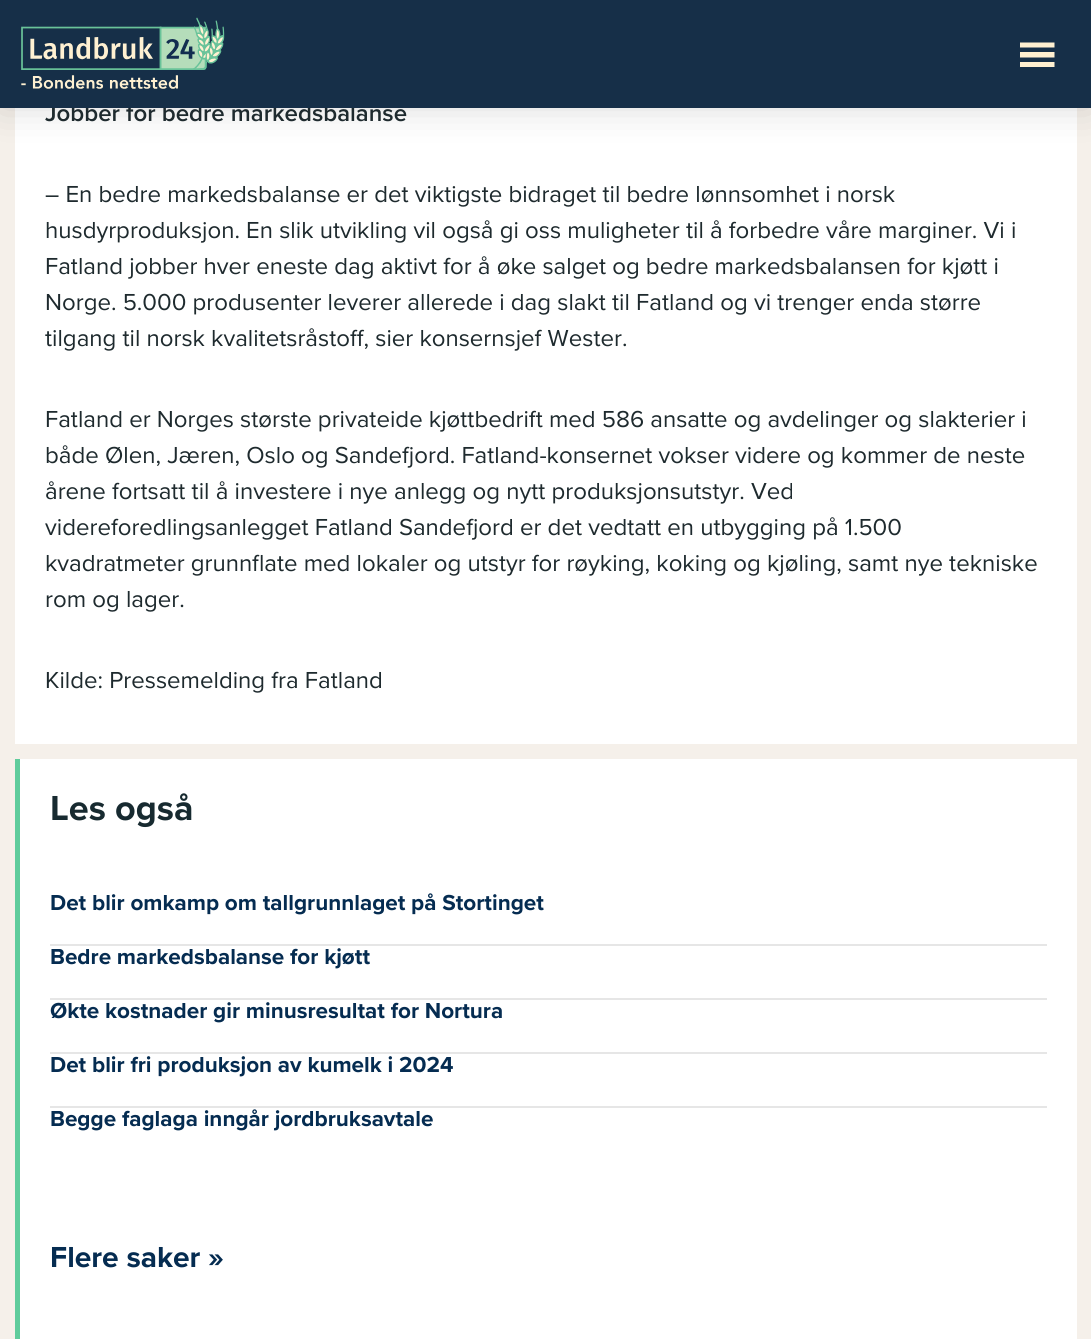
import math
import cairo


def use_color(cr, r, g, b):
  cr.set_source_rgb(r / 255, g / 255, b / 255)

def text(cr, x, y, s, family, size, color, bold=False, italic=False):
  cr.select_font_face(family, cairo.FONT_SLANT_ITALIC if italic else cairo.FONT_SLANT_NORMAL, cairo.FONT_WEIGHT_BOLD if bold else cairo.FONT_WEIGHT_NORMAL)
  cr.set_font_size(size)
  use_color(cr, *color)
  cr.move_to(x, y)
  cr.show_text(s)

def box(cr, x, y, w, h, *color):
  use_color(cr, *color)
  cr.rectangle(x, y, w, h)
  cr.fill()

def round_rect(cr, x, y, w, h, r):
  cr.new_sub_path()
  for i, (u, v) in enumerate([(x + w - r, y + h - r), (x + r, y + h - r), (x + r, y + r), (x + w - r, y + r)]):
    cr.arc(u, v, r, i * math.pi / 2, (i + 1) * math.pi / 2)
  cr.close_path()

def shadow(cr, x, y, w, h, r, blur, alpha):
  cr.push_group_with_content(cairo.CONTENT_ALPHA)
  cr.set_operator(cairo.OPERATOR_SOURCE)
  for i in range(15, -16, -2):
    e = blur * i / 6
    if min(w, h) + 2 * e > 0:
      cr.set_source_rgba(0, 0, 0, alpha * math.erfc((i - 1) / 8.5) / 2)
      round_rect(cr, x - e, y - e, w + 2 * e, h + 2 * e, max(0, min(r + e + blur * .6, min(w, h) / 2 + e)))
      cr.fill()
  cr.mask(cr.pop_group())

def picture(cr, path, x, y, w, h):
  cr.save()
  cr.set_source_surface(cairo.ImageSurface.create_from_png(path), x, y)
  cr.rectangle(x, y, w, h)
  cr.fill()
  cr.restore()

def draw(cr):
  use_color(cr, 245, 240, 234)
  cr.paint()
  box(cr, 15, 108, 1062, 636, 255, 255, 255)
  use_color(cr, 0, 0, 0)
  shadow(cr, 0, 0, 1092, 108, 0, 19, 0.15)
  box(cr, 20, 759, 1057, 580, 255, 255, 255)
  box(cr, 15, 759, 5, 580, 95, 204, 156)
  box(cr, 50, 944, 997, 2, 230, 230, 230)
  box(cr, 50, 998, 997, 2, 230, 230, 230)
  box(cr, 50, 1052, 997, 2, 230, 230, 230)
  box(cr, 50, 1106, 997, 2, 230, 230, 230)
  text(cr, 45, 121, "Jobber for bedre markedsbalanse", "Proxima Nova SemiBold", 24, (30, 42, 46))
  box(cr, 0, 0, 1091, 108, 22, 47, 72)
  use_color(cr, 255, 240, 209)
  cr.new_path()
  cr.move_to(1020, 67)
  cr.line_to(1054.5, 67)
  cr.line_to(1054.5, 62)
  cr.line_to(1020, 62)
  cr.close_path()
  cr.move_to(1020, 42.5)
  cr.line_to(1020, 47.5)
  cr.line_to(1054.5, 47.5)
  cr.line_to(1054.5, 42.5)
  cr.close_path()
  cr.move_to(1020, 57.5)
  cr.line_to(1054.5, 57.5)
  cr.line_to(1054.5, 52)
  cr.line_to(1020, 52)
  cr.close_path()
  cr.fill()
  picture(cr, "img_01.png", 21, 17, 204, 72)
  text(cr, 45, 202, "– En bedre markedsbalanse er det viktigste bidraget til bedre lønnsomhet i norsk", "Proxima Nova", 24, (30, 42, 46))
  text(cr, 45, 238, "husdyrproduksjon. En slik utvikling vil også gi oss muligheter til å forbedre våre marginer. Vi i", "Proxima Nova", 24, (30, 42, 46))
  text(cr, 45, 274, "Fatland jobber hver eneste dag aktivt for å øke salget og bedre markedsbalansen for kjøtt i", "Proxima Nova", 24, (30, 42, 46))
  text(cr, 45, 310, "Norge. 5.000 produsenter leverer allerede i dag slakt til Fatland og vi trenger enda større", "Proxima Nova", 24, (30, 42, 46))
  text(cr, 45, 346, "tilgang til norsk kvalitetsråstoff, sier konsernsjef Wester.", "Proxima Nova", 24, (30, 42, 46))
  text(cr, 45, 427, "Fatland er Norges største privateide kjøttbedrift med 586 ansatte og avdelinger og slakterier i", "Proxima Nova", 24, (30, 42, 46))
  text(cr, 45, 463, "både Ølen, Jæren, Oslo og Sandefjord. Fatland-konsernet vokser videre og kommer de neste", "Proxima Nova", 24, (30, 42, 46))
  text(cr, 45, 499, "årene fortsatt til å investere i nye anlegg og nytt produksjonsutstyr. Ved", "Proxima Nova", 24, (30, 42, 46))
  text(cr, 45, 535, "videreforedlingsanlegget Fatland Sandefjord er det vedtatt en utbygging på 1.500", "Proxima Nova", 24, (30, 42, 46))
  text(cr, 45, 571, "kvadratmeter grunnflate med lokaler og utstyr for røyking, koking og kjøling, samt nye tekniske", "Proxima Nova", 24, (30, 42, 46))
  text(cr, 45, 607, "rom og lager.", "Proxima Nova", 24, (30, 42, 46))
  text(cr, 45, 688, "Kilde: Pressemelding fra Fatland", "Proxima Nova", 24, (30, 42, 46))
  text(cr, 50, 820, "Les også", "Proxima Nova", 36, (23, 42, 48), bold=True)
  text(cr, 50, 910, "Det blir omkamp om tallgrunnlaget på Stortinget", "Proxima Nova", 22.5, (5, 44, 81), bold=True)
  text(cr, 50, 964, "Bedre markedsbalanse for kjøtt", "Proxima Nova", 22.5, (5, 44, 81), bold=True)
  text(cr, 50, 1018, "Økte kostnader gir minusresultat for Nortura", "Proxima Nova", 22.5, (5, 44, 81), bold=True)
  text(cr, 50, 1072, "Det blir fri produksjon av kumelk i 2024", "Proxima Nova", 22.5, (5, 44, 81), bold=True)
  text(cr, 50, 1126, "Begge faglaga inngår jordbruksavtale", "Proxima Nova", 22.5, (5, 44, 81), bold=True)
  text(cr, 50, 1267, "Flere saker »", "Proxima Nova", 30, (5, 44, 81), bold=True)


surface = cairo.ImageSurface(cairo.FORMAT_RGB24, 1091, 1339)
cr = cairo.Context(surface)
options = cairo.FontOptions()
options.set_hint_metrics(cairo.HINT_METRICS_OFF)
options.set_hint_style(cairo.HINT_STYLE_NONE)
cr.set_font_options(options)
cr.set_miter_limit(4)
draw(cr)
surface.write_to_png("out.png")
